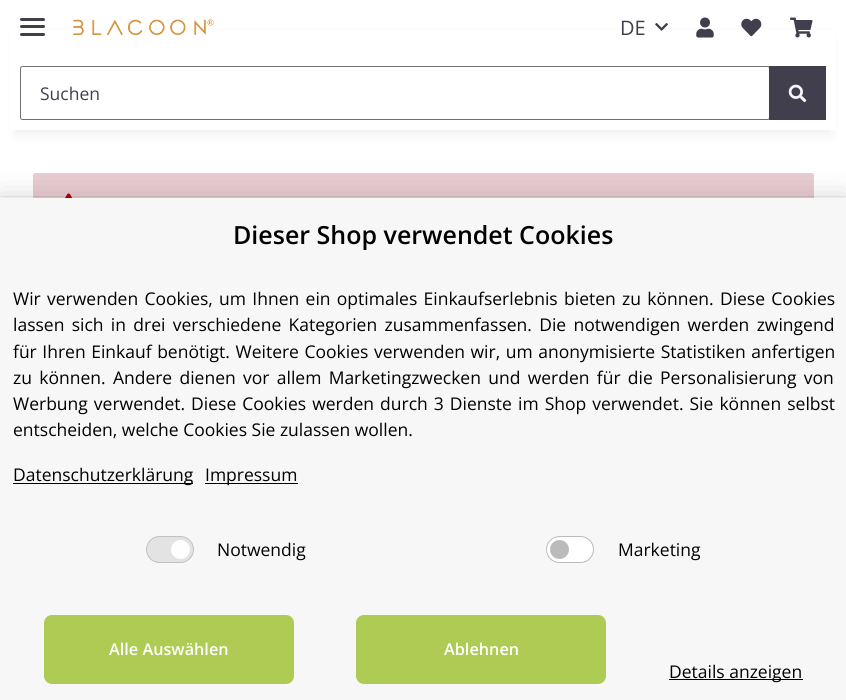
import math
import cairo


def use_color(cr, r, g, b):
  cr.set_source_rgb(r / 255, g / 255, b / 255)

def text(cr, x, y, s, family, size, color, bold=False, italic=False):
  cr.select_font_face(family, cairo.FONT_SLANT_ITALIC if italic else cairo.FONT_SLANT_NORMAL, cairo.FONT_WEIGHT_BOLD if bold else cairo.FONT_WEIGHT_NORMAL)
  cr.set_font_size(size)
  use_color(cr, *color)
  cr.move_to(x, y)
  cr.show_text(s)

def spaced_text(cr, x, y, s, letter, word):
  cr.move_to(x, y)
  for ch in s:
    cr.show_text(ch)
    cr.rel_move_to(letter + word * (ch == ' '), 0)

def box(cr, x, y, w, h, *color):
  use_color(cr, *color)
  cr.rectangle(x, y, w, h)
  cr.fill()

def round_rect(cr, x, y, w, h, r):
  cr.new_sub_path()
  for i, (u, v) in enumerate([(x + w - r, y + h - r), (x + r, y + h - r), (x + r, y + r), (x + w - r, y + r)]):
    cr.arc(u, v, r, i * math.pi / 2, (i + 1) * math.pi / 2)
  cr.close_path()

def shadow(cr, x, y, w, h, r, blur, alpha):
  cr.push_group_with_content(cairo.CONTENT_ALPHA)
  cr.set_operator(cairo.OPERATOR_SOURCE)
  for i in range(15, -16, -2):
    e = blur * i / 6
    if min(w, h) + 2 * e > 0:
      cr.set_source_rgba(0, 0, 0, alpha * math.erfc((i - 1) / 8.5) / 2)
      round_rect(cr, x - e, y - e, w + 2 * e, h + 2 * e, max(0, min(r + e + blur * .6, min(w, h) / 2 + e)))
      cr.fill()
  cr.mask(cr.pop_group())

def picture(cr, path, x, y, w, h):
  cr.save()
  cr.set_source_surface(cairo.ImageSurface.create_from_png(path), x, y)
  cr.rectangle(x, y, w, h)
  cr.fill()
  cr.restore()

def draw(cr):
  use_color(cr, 255, 255, 255)
  cr.paint()
  use_color(cr, 0, 0, 0)
  shadow(cr, 15, 35, 816, 100, 0, 5.5, 0.06)
  box(cr, 10, 30, 826, 100, 255, 255, 255)
  use_color(cr, 65, 63, 77)
  round_rect(cr, 20, 25, 25, 3, 1.5)
  cr.fill()
  round_rect(cr, 20, 18, 25, 3, 1.5)
  cr.fill()
  round_rect(cr, 20, 33, 25, 3, 1.5)
  cr.fill()
  picture(cr, "img_01.png", 73, 19, 141, 17)
  picture(cr, "img_02.png", 655, 23, 13, 8)
  picture(cr, "img_03.png", 696, 17, 18, 21)
  picture(cr, "img_04.png", 741, 18, 21, 19)
  picture(cr, "img_05.png", 790, 17, 23, 21)
  round_rect(cr, 20.5, 66.5, 749, 53, 2)
  use_color(cr, 112, 112, 112)
  cr.set_line_width(1)
  cr.stroke()
  box(cr, 769, 66, 57, 54, 65, 63, 77)
  picture(cr, "img_06.png", 788, 84, 19, 19)
  use_color(cr, 232, 204, 210)
  round_rect(cr, 33.5, 173.5, 780, 57, 2)
  cr.fill_preserve()
  cr.stroke()
  picture(cr, "img_07.png", 65, 193, 8, 5)
  cr.rectangle(-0.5, 196.5, 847, 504)
  cr.set_source_rgba(0, 0, 0, 0.06)
  cr.stroke()
  use_color(cr, 0, 0, 0)
  shadow(cr, 0, 198, 846, 502, 0, 15, 0.16)
  box(cr, 0, 198, 846, 502, 248, 247, 247)
  box(cr, 13, 483, 180, 1, 0, 0, 0)
  box(cr, 205, 483, 93, 1, 0, 0, 0)
  use_color(cr, 227, 227, 227)
  round_rect(cr, 146.5, 536.5, 47, 26, 13)
  cr.fill_preserve()
  use_color(cr, 193, 193, 193)
  cr.stroke()
  use_color(cr, 254, 254, 254)
  cr.arc(180.5, 549.5, 9.5, 0, 2 * math.pi)
  cr.fill()
  use_color(cr, 255, 255, 255)
  round_rect(cr, 546.5, 536.5, 47, 26, 13)
  cr.fill_preserve()
  use_color(cr, 187, 187, 187)
  cr.stroke()
  cr.arc(559.5, 549.5, 9.5, 0, 2 * math.pi)
  cr.fill()
  use_color(cr, 174, 204, 83)
  round_rect(cr, 45.5, 616.5, 247, 66, 6.5)
  cr.fill_preserve()
  cr.set_line_width(3)
  cr.stroke()
  round_rect(cr, 357.5, 616.5, 247, 66, 6.5)
  cr.fill_preserve()
  cr.stroke()
  box(cr, 669, 679, 134, 1, 0, 0, 0)
  text(cr, 620, 35, "DE", "Open Sans", 20, (65, 63, 77))
  text(cr, 40, 100, "Suchen", "Open Sans", 17.5, (65, 63, 77))
  text(cr, 233, 244, "Dieser Shop verwendet Cookies", "Open Sans SemiBold", 25, (0, 0, 0))
  cr.select_font_face("Open Sans")
  cr.set_font_size(17.5)
  spaced_text(cr, 13, 305, "Wir verwenden Cookies, um Ihnen ein optimales Einkaufserlebnis bieten zu können. Diese Cookies", 0, 1.75)
  spaced_text(cr, 13, 331, "lassen sich in drei verschiedene Kategorien zusammenfassen. Die notwendigen werden zwingend", 0, 2.75)
  spaced_text(cr, 13, 358, "für Ihren Einkauf benötigt. Weitere Cookies verwenden wir, um anonymisierte Statistiken anfertigen", 0, 1)
  spaced_text(cr, 13, 384, "zu können. Andere dienen vor allem Marketingzwecken und werden für die Personalisierung von", 0, 2.75)
  spaced_text(cr, 13, 410, "Werbung verwendet. Diese Cookies werden durch 3 Dienste im Shop verwendet. Sie können selbst", 0, 1.5)
  text(cr, 13, 436, "entscheiden, welche Cookies Sie zulassen wollen.", "Open Sans", 17.5, (0, 0, 0))
  text(cr, 13, 481, "Datenschutzerklärung", "Open Sans", 17.5, (0, 0, 0))
  text(cr, 205, 481, "Impressum", "Open Sans", 17.5, (0, 0, 0))
  text(cr, 217, 556, "Notwendig", "Open Sans", 17.5, (0, 0, 0))
  text(cr, 618, 556, "Marketing", "Open Sans", 17.5, (0, 0, 0))
  text(cr, 109, 655, "Alle Auswählen", "Open Sans SemiBold", 16.25, (255, 255, 255))
  text(cr, 444, 655, "Ablehnen", "Open Sans SemiBold", 16.25, (255, 255, 255))
  text(cr, 669, 678, "Details anzeigen", "Open Sans", 17.5, (0, 0, 0))


surface = cairo.ImageSurface(cairo.FORMAT_RGB24, 846, 700)
cr = cairo.Context(surface)
options = cairo.FontOptions()
options.set_hint_metrics(cairo.HINT_METRICS_OFF)
options.set_hint_style(cairo.HINT_STYLE_NONE)
cr.set_font_options(options)
cr.set_miter_limit(4)
draw(cr)
surface.write_to_png("out.png")
